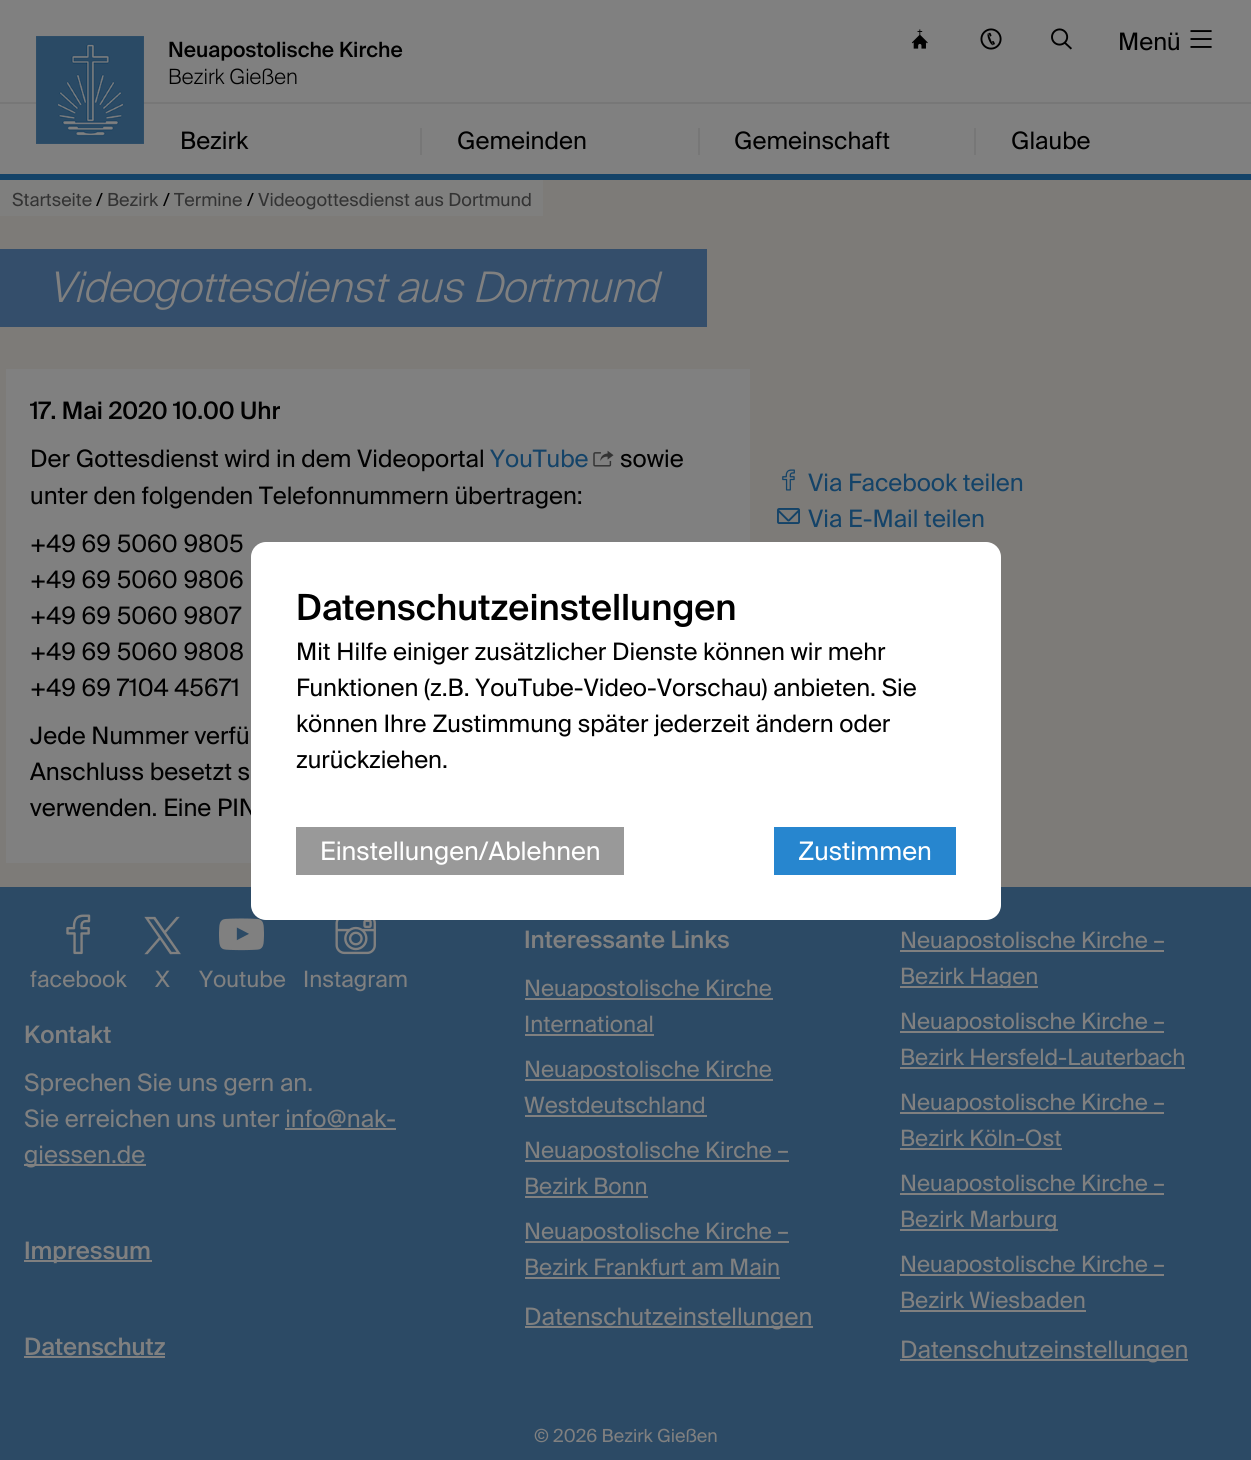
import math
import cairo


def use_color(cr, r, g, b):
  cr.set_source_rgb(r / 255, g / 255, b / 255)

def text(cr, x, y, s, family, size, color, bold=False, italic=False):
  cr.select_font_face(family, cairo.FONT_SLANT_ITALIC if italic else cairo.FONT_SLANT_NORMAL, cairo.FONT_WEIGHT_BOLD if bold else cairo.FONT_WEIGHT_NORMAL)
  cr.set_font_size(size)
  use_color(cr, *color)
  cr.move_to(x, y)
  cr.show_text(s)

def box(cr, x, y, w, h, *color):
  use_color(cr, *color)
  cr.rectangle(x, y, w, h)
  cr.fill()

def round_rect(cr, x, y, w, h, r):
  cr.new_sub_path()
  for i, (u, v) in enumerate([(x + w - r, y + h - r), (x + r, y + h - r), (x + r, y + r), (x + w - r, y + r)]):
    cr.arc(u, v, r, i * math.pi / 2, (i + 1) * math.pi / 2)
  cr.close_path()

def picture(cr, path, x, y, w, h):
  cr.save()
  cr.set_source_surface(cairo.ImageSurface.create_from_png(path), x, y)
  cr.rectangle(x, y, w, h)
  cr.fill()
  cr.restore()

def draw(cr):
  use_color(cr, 125, 123, 120)
  cr.paint()
  box(cr, 0, 0, 1251, 174, 128, 128, 128)
  box(cr, 0, 174, 1251, 6, 20, 67, 104)
  box(cr, 0, 102, 1251, 2, 119, 119, 119)
  picture(cr, "img_01.png", 36, 36, 108, 108)
  picture(cr, "img_02.png", 911, 29, 17, 20)
  picture(cr, "img_03.png", 980, 28, 22, 22)
  picture(cr, "img_04.png", 1051, 28, 21, 22)
  picture(cr, "img_05.png", 1190, 30, 22, 18)
  box(cr, 420, 128, 2, 27, 119, 119, 119)
  box(cr, 698, 128, 2, 27, 119, 119, 119)
  box(cr, 974, 128, 2, 27, 119, 119, 119)
  box(cr, 0, 180, 543, 36, 127, 127, 126)
  box(cr, 0, 249, 707, 78, 52, 78, 107)
  box(cr, 6, 369, 744, 494, 128, 128, 128)
  picture(cr, "img_06.png", 593, 450, 21, 17)
  picture(cr, "img_07.png", 782, 469, 13, 22)
  picture(cr, "img_08.png", 777, 508, 23, 16)
  box(cr, 0, 887, 1251, 573, 44, 74, 101)
  picture(cr, "img_09.png", 66, 914, 25, 41)
  picture(cr, "img_10.png", 144, 916, 37, 39)
  picture(cr, "img_11.png", 219, 918, 45, 33)
  picture(cr, "img_12.png", 335, 920, 41, 35)
  box(cr, 285, 1128, 111, 2, 128, 128, 128)
  box(cr, 24, 1164, 122, 2, 128, 128, 128)
  box(cr, 24, 1260, 128, 2, 128, 128, 128)
  box(cr, 24, 1356, 141, 2, 128, 128, 128)
  box(cr, 525, 998, 248, 2, 128, 128, 128)
  box(cr, 525, 1034, 129, 2, 128, 128, 128)
  box(cr, 525, 1079, 248, 2, 128, 128, 128)
  box(cr, 525, 1115, 182, 2, 128, 128, 128)
  box(cr, 525, 1160, 264, 2, 128, 128, 128)
  box(cr, 525, 1196, 123, 2, 128, 128, 128)
  box(cr, 525, 1241, 264, 2, 128, 128, 128)
  box(cr, 525, 1277, 255, 2, 128, 128, 128)
  box(cr, 525, 1326, 288, 2, 128, 128, 128)
  box(cr, 900, 950, 264, 2, 128, 128, 128)
  box(cr, 900, 986, 138, 2, 128, 128, 128)
  box(cr, 900, 1031, 264, 2, 128, 128, 128)
  box(cr, 900, 1067, 285, 2, 128, 128, 128)
  box(cr, 900, 1112, 264, 2, 128, 128, 128)
  box(cr, 900, 1148, 162, 2, 128, 128, 128)
  box(cr, 900, 1193, 264, 2, 128, 128, 128)
  box(cr, 900, 1229, 158, 2, 128, 128, 128)
  box(cr, 900, 1274, 264, 2, 128, 128, 128)
  box(cr, 900, 1310, 186, 2, 128, 128, 128)
  box(cr, 900, 1359, 288, 2, 128, 128, 128)
  text(cr, 168, 57, "Neuapostolische Kirche", "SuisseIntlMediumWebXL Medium", 21, (0, 0, 0))
  text(cr, 1118, 50, "Menü", "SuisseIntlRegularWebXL", 24, (0, 0, 0))
  text(cr, 168, 84, "Bezirk Gießen", "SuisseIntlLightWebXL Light", 21, (0, 0, 0))
  text(cr, 180, 149, "Bezirk", "SuisseIntlRegularWebXL", 24, (0, 0, 0))
  text(cr, 457, 149, "Gemeinden", "SuisseIntlRegularWebXL", 24, (0, 0, 0))
  text(cr, 734, 149, "Gemeinschaft", "SuisseIntlRegularWebXL", 24, (0, 0, 0))
  text(cr, 1011, 149, "Glaube", "SuisseIntlRegularWebXL", 24, (0, 0, 0))
  text(cr, 12, 206, "Startseite", "SuisseIntlRegularWebXL", 18, (51, 51, 51))
  text(cr, 96, 206, "/", "SuisseIntlRegularWebXL", 18, (0, 0, 0))
  text(cr, 107, 206, "Bezirk", "SuisseIntlRegularWebXL", 18, (51, 51, 51))
  text(cr, 163, 206, "/", "SuisseIntlRegularWebXL", 18, (0, 0, 0))
  text(cr, 174, 206, "Termine", "SuisseIntlRegularWebXL", 18, (51, 51, 51))
  text(cr, 247, 206, "/", "SuisseIntlRegularWebXL", 18, (0, 0, 0))
  text(cr, 258, 206, "Videogottesdienst aus Dortmund", "SuisseIntlRegularWebXL", 18, (51, 51, 51))
  text(cr, 48, 302, "Videogottesdienst aus Dortmund", "SuisseIntlLightWebXL Light", 42, (128, 128, 128), italic=True)
  text(cr, 30, 419, "17. Mai 2020 10.00 Uhr", "SuisseIntlMediumWebXL Medium", 24, (0, 0, 0))
  text(cr, 30, 467, "Der Gottesdienst wird in dem Videoportal", "SuisseIntlRegularWebXL", 24, (0, 0, 0))
  text(cr, 490, 467, "YouTube", "SuisseIntlRegularWebXL", 24, (20, 67, 104))
  text(cr, 620, 467, "sowie", "SuisseIntlRegularWebXL", 24, (0, 0, 0))
  text(cr, 30, 504, "unter den folgenden Telefonnummern übertragen:", "SuisseIntlRegularWebXL", 24, (0, 0, 0))
  text(cr, 30, 552, "+49 69 5060 9805", "SuisseIntlRegularWebXL", 24, (0, 0, 0))
  text(cr, 30, 588, "+49 69 5060 9806", "SuisseIntlRegularWebXL", 24, (0, 0, 0))
  text(cr, 30, 624, "+49 69 5060 9807", "SuisseIntlRegularWebXL", 24, (0, 0, 0))
  text(cr, 30, 660, "+49 69 5060 9808", "SuisseIntlRegularWebXL", 24, (0, 0, 0))
  text(cr, 30, 696, "+49 69 7104 45671", "SuisseIntlRegularWebXL", 24, (0, 0, 0))
  text(cr, 30, 744, "Jede Nummer verfü", "SuisseIntlRegularWebXL", 24, (0, 0, 0))
  text(cr, 30, 780, "Anschluss besetzt s", "SuisseIntlRegularWebXL", 24, (0, 0, 0))
  text(cr, 30, 816, "verwenden. Eine PIN", "SuisseIntlRegularWebXL", 24, (0, 0, 0))
  text(cr, 808, 491, "Via Facebook teilen", "SuisseIntlRegularWebXL", 24, (20, 67, 104))
  text(cr, 808, 527, "Via E-Mail teilen", "SuisseIntlRegularWebXL", 24, (20, 67, 104))
  use_color(cr, 255, 255, 255)
  round_rect(cr, 251, 542, 750, 378, 15)
  cr.fill()
  text(cr, 296, 620, "Datenschutzeinstellungen", "SuisseIntlMediumWebXL Medium", 36, (0, 0, 0))
  text(cr, 296, 660, "Mit Hilfe einiger zusätzlicher Dienste können wir mehr", "SuisseIntlRegularWebXL", 24, (0, 0, 0))
  text(cr, 296, 696, "Funktionen (z.B. YouTube-Video-Vorschau) anbieten. Sie", "SuisseIntlRegularWebXL", 24, (0, 0, 0))
  text(cr, 296, 732, "können Ihre Zustimmung später jederzeit ändern oder", "SuisseIntlRegularWebXL", 24, (0, 0, 0))
  text(cr, 296, 768, "zurückziehen.", "SuisseIntlRegularWebXL", 24, (0, 0, 0))
  box(cr, 296, 827, 328, 48, 153, 153, 153)
  text(cr, 320, 860, "Einstellungen/Ablehnen", "SuisseIntlRegularWebXL", 25.5, (255, 255, 255))
  box(cr, 774, 827, 182, 48, 39, 134, 207)
  text(cr, 798, 860, "Zustimmen", "SuisseIntlRegularWebXL", 25.5, (255, 255, 255))
  text(cr, 30, 987, "facebook", "SuisseIntlRegularWebXL", 22.5, (128, 128, 128))
  text(cr, 155, 987, "X", "SuisseIntlRegularWebXL", 22.5, (128, 128, 128))
  text(cr, 199, 987, "Youtube", "SuisseIntlRegularWebXL", 22.5, (128, 128, 128))
  text(cr, 303, 987, "Instagram", "SuisseIntlRegularWebXL", 22.5, (128, 128, 128))
  text(cr, 24, 1043, "Kontakt", "SuisseIntlMediumWebXL Medium", 24, (128, 128, 128))
  text(cr, 24, 1091, "Sprechen Sie uns gern an.", "SuisseIntlRegularWebXL", 24, (128, 128, 128))
  text(cr, 24, 1127, "Sie erreichen uns unter info@nak-", "SuisseIntlRegularWebXL", 24, (128, 128, 128))
  text(cr, 24, 1163, "giessen.de", "SuisseIntlRegularWebXL", 24, (128, 128, 128))
  text(cr, 24, 1259, "Impressum", "SuisseIntlMediumWebXL Medium", 24, (128, 128, 128))
  text(cr, 24, 1355, "Datenschutz", "SuisseIntlMediumWebXL Medium", 24, (128, 128, 128))
  text(cr, 524, 948, "Interessante Links", "SuisseIntlMediumWebXL Medium", 24, (128, 128, 128))
  text(cr, 524, 996, "Neuapostolische Kirche", "SuisseIntlRegularWebXL", 22.5, (128, 128, 128))
  text(cr, 524, 1032, "International", "SuisseIntlRegularWebXL", 22.5, (128, 128, 128))
  text(cr, 524, 1077, "Neuapostolische Kirche", "SuisseIntlRegularWebXL", 22.5, (128, 128, 128))
  text(cr, 524, 1113, "Westdeutschland", "SuisseIntlRegularWebXL", 22.5, (128, 128, 128))
  text(cr, 524, 1158, "Neuapostolische Kirche –", "SuisseIntlRegularWebXL", 22.5, (128, 128, 128))
  text(cr, 524, 1194, "Bezirk Bonn", "SuisseIntlRegularWebXL", 22.5, (128, 128, 128))
  text(cr, 524, 1239, "Neuapostolische Kirche –", "SuisseIntlRegularWebXL", 22.5, (128, 128, 128))
  text(cr, 524, 1275, "Bezirk Frankfurt am Main", "SuisseIntlRegularWebXL", 22.5, (128, 128, 128))
  text(cr, 524, 1325, "Datenschutzeinstellungen", "SuisseIntlRegularWebXL", 24, (128, 128, 128))
  text(cr, 900, 948, "Neuapostolische Kirche –", "SuisseIntlRegularWebXL", 22.5, (128, 128, 128))
  text(cr, 900, 984, "Bezirk Hagen", "SuisseIntlRegularWebXL", 22.5, (128, 128, 128))
  text(cr, 900, 1029, "Neuapostolische Kirche –", "SuisseIntlRegularWebXL", 22.5, (128, 128, 128))
  text(cr, 900, 1065, "Bezirk Hersfeld-Lauterbach", "SuisseIntlRegularWebXL", 22.5, (128, 128, 128))
  text(cr, 900, 1110, "Neuapostolische Kirche –", "SuisseIntlRegularWebXL", 22.5, (128, 128, 128))
  text(cr, 900, 1146, "Bezirk Köln-Ost", "SuisseIntlRegularWebXL", 22.5, (128, 128, 128))
  text(cr, 900, 1191, "Neuapostolische Kirche –", "SuisseIntlRegularWebXL", 22.5, (128, 128, 128))
  text(cr, 900, 1227, "Bezirk Marburg", "SuisseIntlRegularWebXL", 22.5, (128, 128, 128))
  text(cr, 900, 1272, "Neuapostolische Kirche –", "SuisseIntlRegularWebXL", 22.5, (128, 128, 128))
  text(cr, 900, 1308, "Bezirk Wiesbaden", "SuisseIntlRegularWebXL", 22.5, (128, 128, 128))
  text(cr, 900, 1358, "Datenschutzeinstellungen", "SuisseIntlRegularWebXL", 24, (128, 128, 128))
  text(cr, 534, 1442, "© 2026 Bezirk Gießen", "SuisseIntlRegularWebXL", 18, (128, 128, 128))


surface = cairo.ImageSurface(cairo.FORMAT_RGB24, 1251, 1460)
cr = cairo.Context(surface)
options = cairo.FontOptions()
options.set_hint_metrics(cairo.HINT_METRICS_OFF)
options.set_hint_style(cairo.HINT_STYLE_NONE)
cr.set_font_options(options)
cr.set_miter_limit(4)
draw(cr)
surface.write_to_png("out.png")
